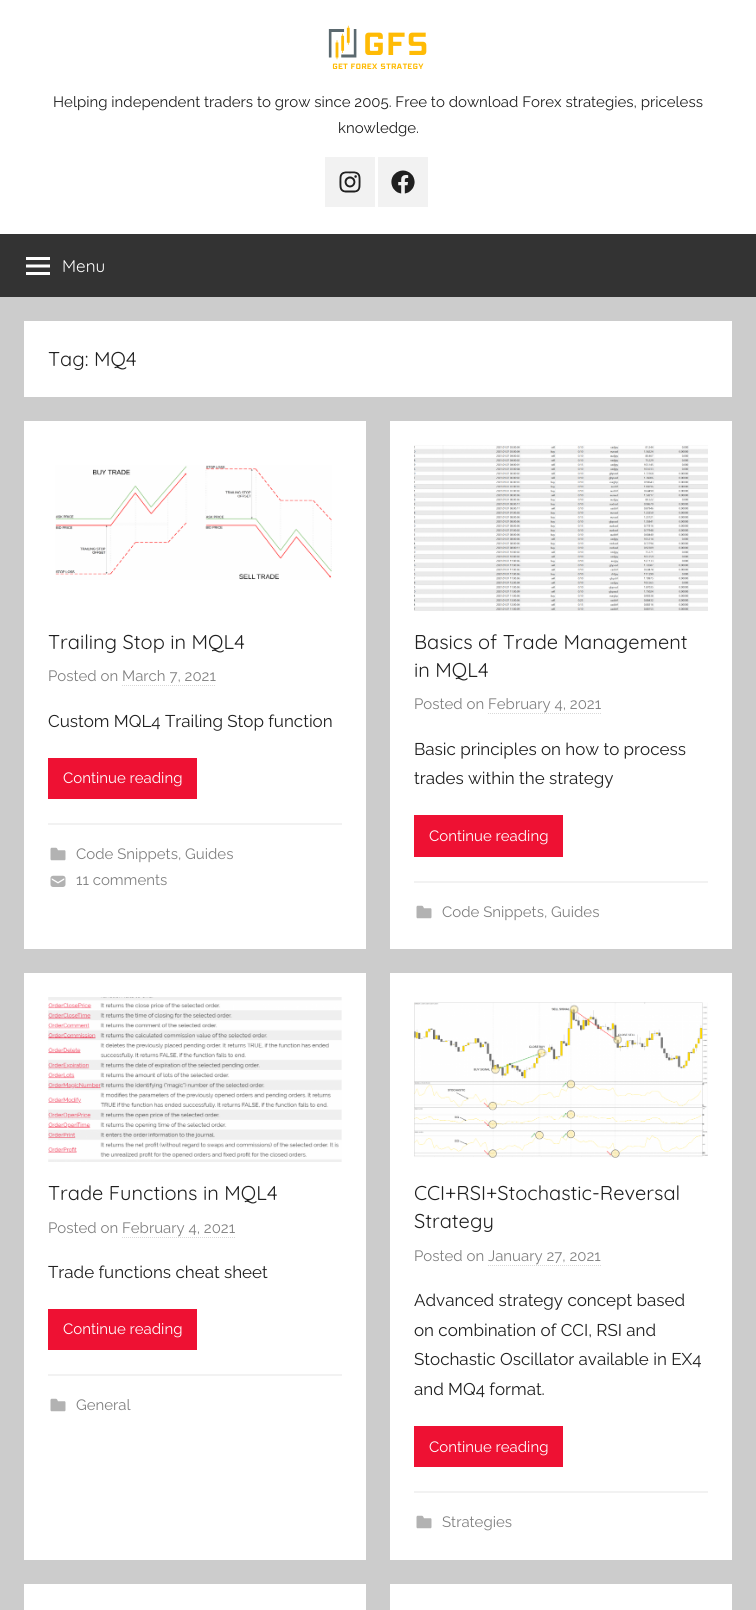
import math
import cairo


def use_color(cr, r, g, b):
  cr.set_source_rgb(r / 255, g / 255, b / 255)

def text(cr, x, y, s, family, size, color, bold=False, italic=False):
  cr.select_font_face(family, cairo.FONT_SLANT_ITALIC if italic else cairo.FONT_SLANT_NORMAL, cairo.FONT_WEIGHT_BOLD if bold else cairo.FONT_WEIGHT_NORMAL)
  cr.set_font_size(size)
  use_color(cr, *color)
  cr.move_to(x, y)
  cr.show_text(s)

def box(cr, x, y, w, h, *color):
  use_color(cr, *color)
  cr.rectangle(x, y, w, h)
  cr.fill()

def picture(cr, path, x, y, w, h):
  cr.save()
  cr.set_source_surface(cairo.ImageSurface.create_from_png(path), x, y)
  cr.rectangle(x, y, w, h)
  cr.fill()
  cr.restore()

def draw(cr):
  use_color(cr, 204, 204, 204)
  cr.paint()
  box(cr, 0, 0, 756, 234, 255, 255, 255)
  picture(cr, "img_01.png", 328, 25, 99, 44)
  box(cr, 325, 157, 50, 50, 242, 242, 242)
  picture(cr, "img_02.png", 339, 171, 22, 22)
  box(cr, 378, 157, 50, 50, 242, 242, 242)
  picture(cr, "img_03.png", 391, 170, 24, 24)
  box(cr, 0, 234, 756, 63, 51, 51, 51)
  picture(cr, "img_04.png", 26, 257, 24, 18)
  box(cr, 24, 321, 708, 76, 255, 255, 255)
  box(cr, 24, 421, 342, 528, 255, 255, 255)
  picture(cr, "img_05.png", 55, 465, 277, 115)
  cr.new_path()
  cr.move_to(122, 685.5)
  cr.line_to(216, 685.5)
  use_color(cr, 217, 217, 217)
  cr.set_line_width(1)
  cr.set_dash([1, 1])
  cr.stroke()
  box(cr, 48, 758, 149, 41, 238, 17, 51)
  box(cr, 48, 823, 294, 2, 242, 242, 242)
  picture(cr, "img_06.png", 50, 847, 16, 14)
  picture(cr, "img_07.png", 50, 875, 16, 12)
  box(cr, 390, 421, 342, 528, 255, 255, 255)
  picture(cr, "img_08.png", 414, 445, 294, 166)
  cr.new_path()
  cr.move_to(488, 713.5)
  cr.line_to(601, 713.5)
  use_color(cr, 217, 217, 217)
  cr.stroke()
  box(cr, 414, 815, 149, 42, 238, 17, 51)
  box(cr, 414, 881, 294, 2, 242, 242, 242)
  picture(cr, "img_06.png", 416, 905, 16, 14)
  box(cr, 24, 973, 342, 587, 255, 255, 255)
  picture(cr, "img_09.png", 48, 997, 294, 165)
  cr.new_path()
  cr.move_to(122, 1237.5)
  cr.line_to(235, 1237.5)
  use_color(cr, 217, 217, 217)
  cr.stroke()
  box(cr, 48, 1309, 149, 41, 238, 17, 51)
  box(cr, 48, 1374, 294, 2, 242, 242, 242)
  picture(cr, "img_06.png", 50, 1398, 16, 14)
  box(cr, 390, 973, 342, 587, 255, 255, 255)
  picture(cr, "img_10.png", 414, 1002, 294, 156)
  cr.new_path()
  cr.move_to(488, 1265.5)
  cr.line_to(601, 1265.5)
  use_color(cr, 217, 217, 217)
  cr.stroke()
  box(cr, 414, 1426, 149, 41, 238, 17, 51)
  box(cr, 414, 1491, 294, 2, 242, 242, 242)
  picture(cr, "img_06.png", 416, 1515, 16, 14)
  box(cr, 24, 1584, 342, 26, 255, 255, 255)
  box(cr, 390, 1584, 342, 26, 255, 255, 255)
  text(cr, 53, 107, "Helping independent traders to grow since 2005. Free to download Forex strategies, priceless", "Raleway Thin", 15, (32, 32, 32))
  text(cr, 338, 133, "knowledge.", "Raleway Thin", 15, (32, 32, 32))
  text(cr, 62, 272, "Menu", "Quicksand Light", 17, (255, 255, 255))
  text(cr, 48, 366, "Tag: MQ4", "Quicksand Light", 20, (32, 32, 32))
  text(cr, 48, 649, "Trailing Stop in MQL4", "Quicksand Light", 20, (32, 32, 32))
  text(cr, 48, 681, "Posted on March 7, 2021", "Raleway Thin", 15, (128, 128, 128))
  text(cr, 48, 727, "Custom MQL4 Trailing Stop function", "Raleway Thin", 17, (32, 32, 32))
  text(cr, 63, 783, "Continue reading", "Raleway Thin", 15, (255, 255, 255))
  text(cr, 76, 859, "Code Snippets, Guides", "Raleway Thin", 15, (128, 128, 128))
  text(cr, 76, 885, "11 comments", "Raleway Thin", 15, (128, 128, 128))
  text(cr, 414, 649, "Basics of Trade Management", "Quicksand Light", 20, (32, 32, 32))
  text(cr, 414, 677, "in MQL4", "Quicksand Light", 20, (32, 32, 32))
  text(cr, 414, 709, "Posted on February 4, 2021", "Raleway Thin", 15, (128, 128, 128))
  text(cr, 414, 755, "Basic principles on how to process", "Raleway Thin", 17, (32, 32, 32))
  text(cr, 414, 784, "trades within the strategy", "Raleway Thin", 17, (32, 32, 32))
  text(cr, 429, 841, "Continue reading", "Raleway Thin", 15, (255, 255, 255))
  text(cr, 442, 917, "Code Snippets, Guides", "Raleway Thin", 15, (128, 128, 128))
  text(cr, 48, 1200, "Trade Functions in MQL4", "Quicksand Light", 20, (32, 32, 32))
  text(cr, 48, 1233, "Posted on February 4, 2021", "Raleway Thin", 15, (128, 128, 128))
  text(cr, 48, 1278, "Trade functions cheat sheet", "Raleway Thin", 17, (32, 32, 32))
  text(cr, 63, 1334, "Continue reading", "Raleway Thin", 15, (255, 255, 255))
  text(cr, 76, 1410, "General", "Raleway Thin", 15, (128, 128, 128))
  text(cr, 414, 1200, "CCI+RSI+Stochastic-Reversal", "Quicksand Light", 20, (32, 32, 32))
  text(cr, 414, 1228, "Strategy", "Quicksand Light", 20, (32, 32, 32))
  text(cr, 414, 1261, "Posted on January 27, 2021", "Raleway Thin", 15, (128, 128, 128))
  text(cr, 414, 1306, "Advanced strategy concept based", "Raleway Thin", 17, (32, 32, 32))
  text(cr, 414, 1336, "on combination of CCI, RSI and", "Raleway Thin", 17, (32, 32, 32))
  text(cr, 414, 1365, "Stochastic Oscillator available in EX4", "Raleway Thin", 17, (32, 32, 32))
  text(cr, 414, 1395, "and MQ4 format.", "Raleway Thin", 17, (32, 32, 32))
  text(cr, 429, 1452, "Continue reading", "Raleway Thin", 15, (255, 255, 255))
  text(cr, 442, 1527, "Strategies", "Raleway Thin", 15, (128, 128, 128))


surface = cairo.ImageSurface(cairo.FORMAT_RGB24, 756, 1610)
cr = cairo.Context(surface)
options = cairo.FontOptions()
options.set_hint_metrics(cairo.HINT_METRICS_OFF)
options.set_hint_style(cairo.HINT_STYLE_NONE)
cr.set_font_options(options)
cr.set_miter_limit(4)
draw(cr)
surface.write_to_png("out.png")
